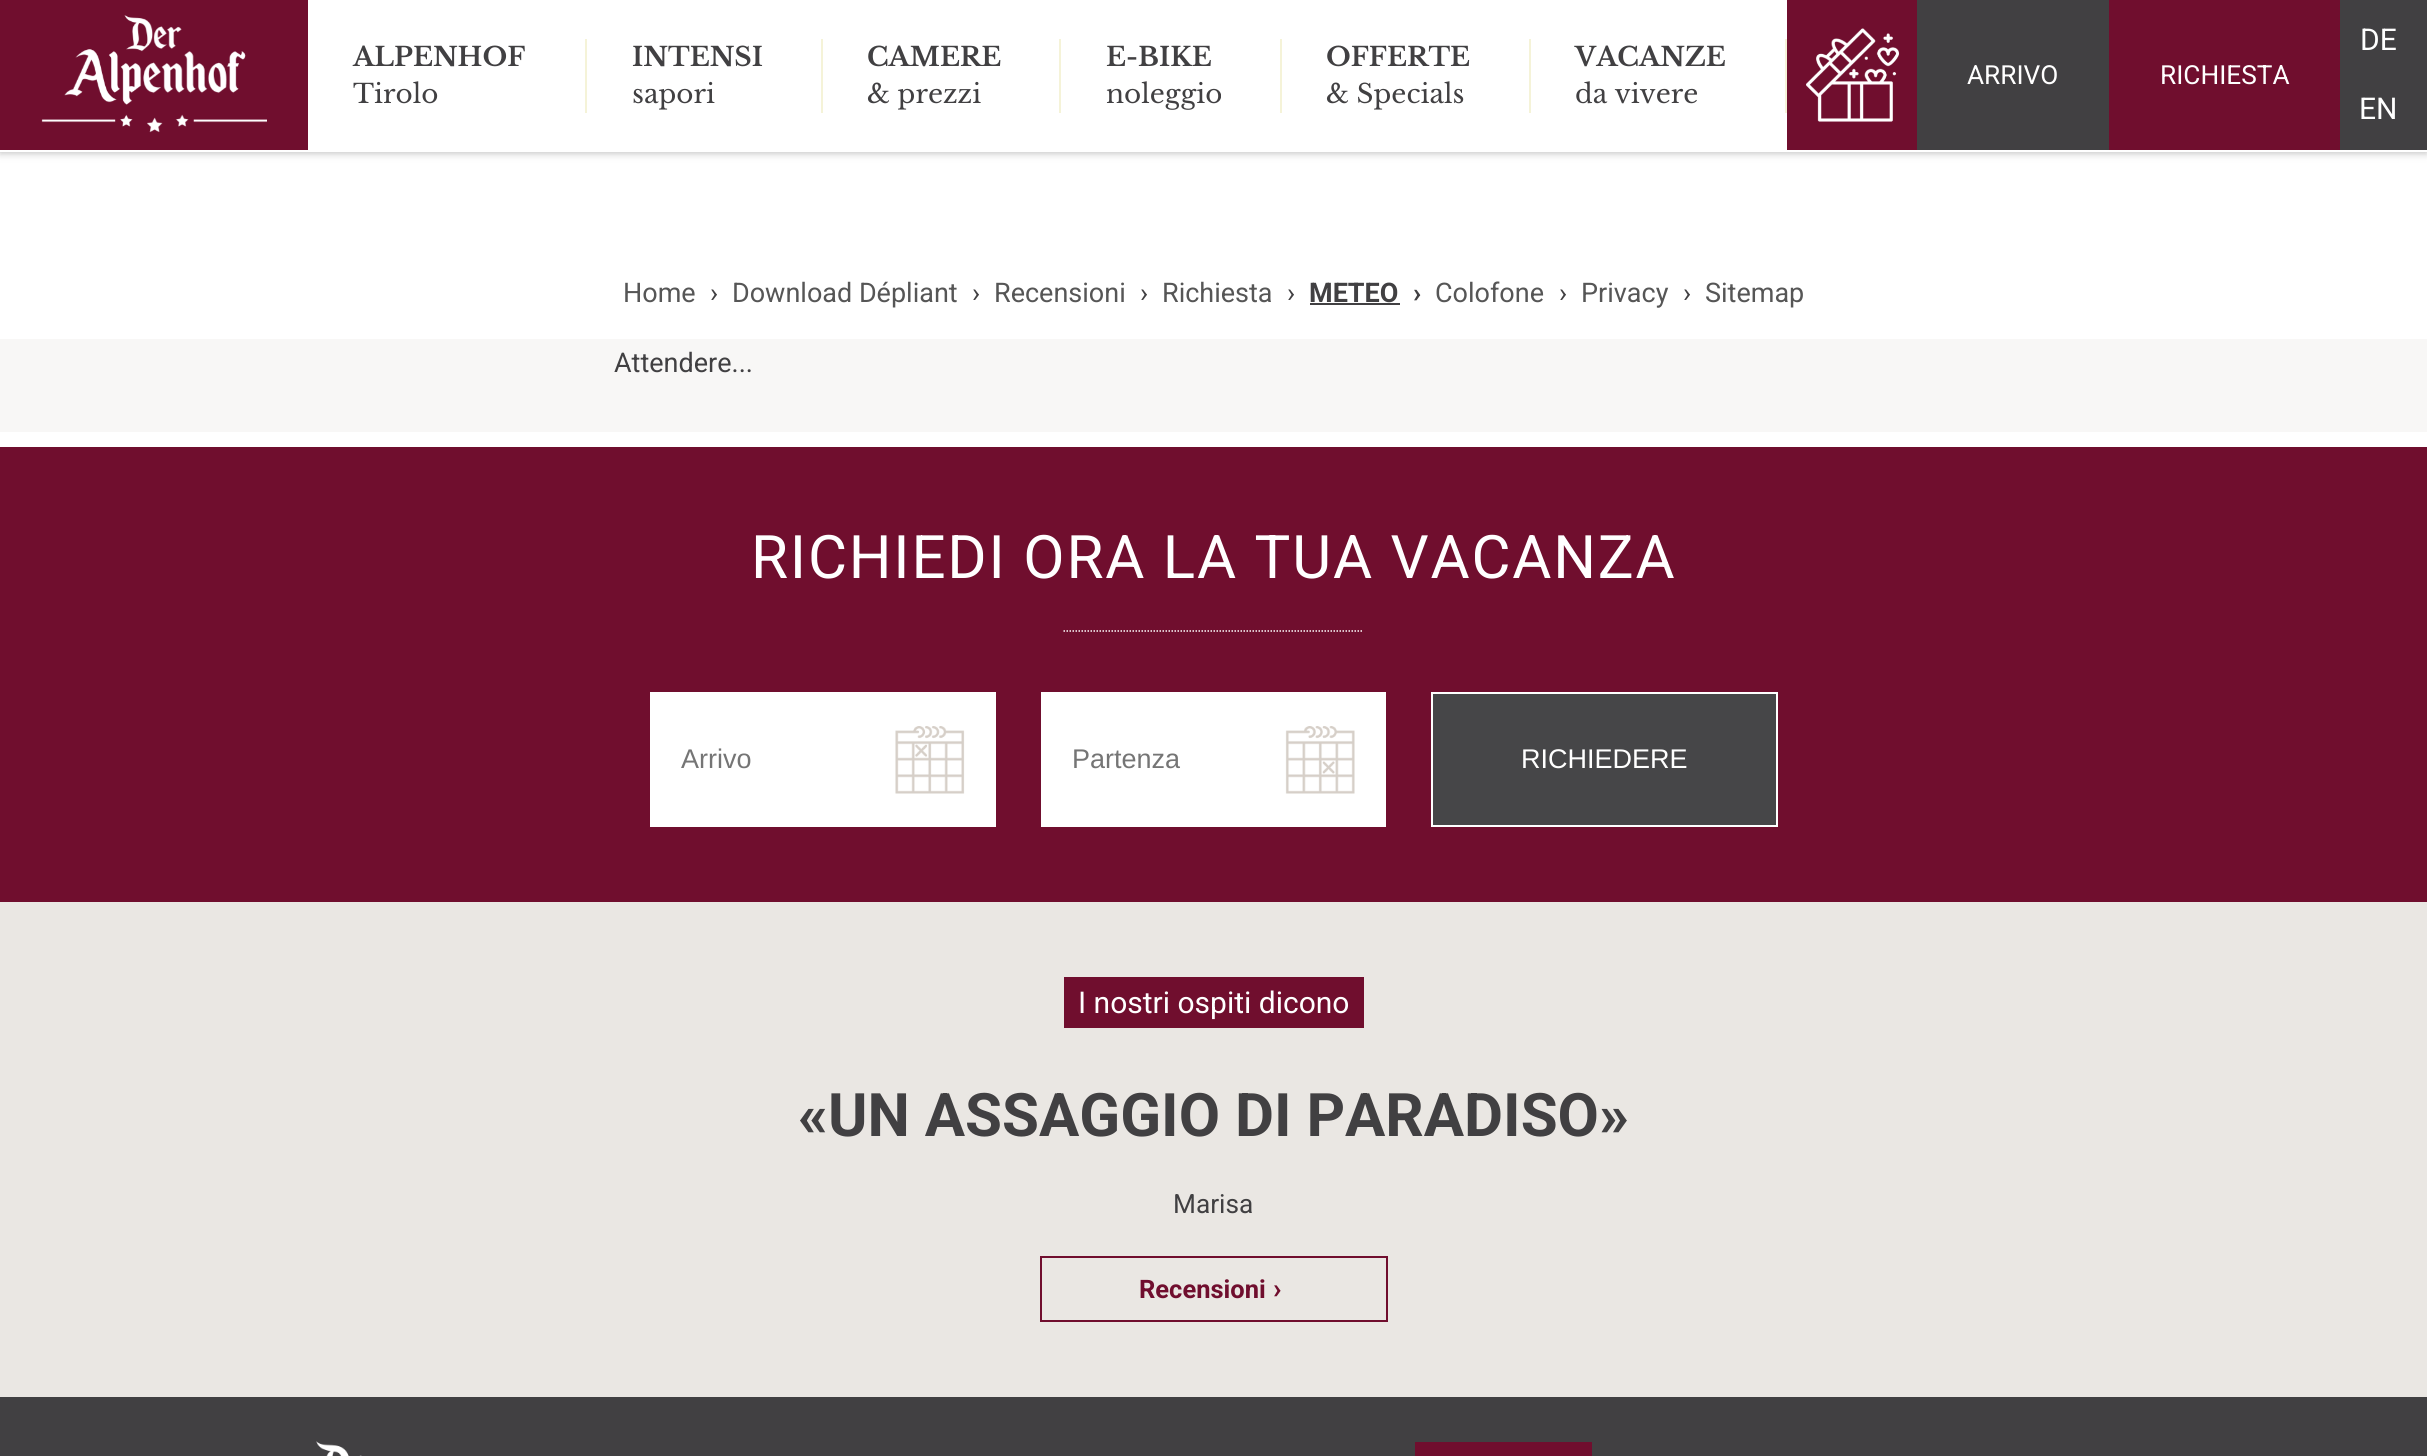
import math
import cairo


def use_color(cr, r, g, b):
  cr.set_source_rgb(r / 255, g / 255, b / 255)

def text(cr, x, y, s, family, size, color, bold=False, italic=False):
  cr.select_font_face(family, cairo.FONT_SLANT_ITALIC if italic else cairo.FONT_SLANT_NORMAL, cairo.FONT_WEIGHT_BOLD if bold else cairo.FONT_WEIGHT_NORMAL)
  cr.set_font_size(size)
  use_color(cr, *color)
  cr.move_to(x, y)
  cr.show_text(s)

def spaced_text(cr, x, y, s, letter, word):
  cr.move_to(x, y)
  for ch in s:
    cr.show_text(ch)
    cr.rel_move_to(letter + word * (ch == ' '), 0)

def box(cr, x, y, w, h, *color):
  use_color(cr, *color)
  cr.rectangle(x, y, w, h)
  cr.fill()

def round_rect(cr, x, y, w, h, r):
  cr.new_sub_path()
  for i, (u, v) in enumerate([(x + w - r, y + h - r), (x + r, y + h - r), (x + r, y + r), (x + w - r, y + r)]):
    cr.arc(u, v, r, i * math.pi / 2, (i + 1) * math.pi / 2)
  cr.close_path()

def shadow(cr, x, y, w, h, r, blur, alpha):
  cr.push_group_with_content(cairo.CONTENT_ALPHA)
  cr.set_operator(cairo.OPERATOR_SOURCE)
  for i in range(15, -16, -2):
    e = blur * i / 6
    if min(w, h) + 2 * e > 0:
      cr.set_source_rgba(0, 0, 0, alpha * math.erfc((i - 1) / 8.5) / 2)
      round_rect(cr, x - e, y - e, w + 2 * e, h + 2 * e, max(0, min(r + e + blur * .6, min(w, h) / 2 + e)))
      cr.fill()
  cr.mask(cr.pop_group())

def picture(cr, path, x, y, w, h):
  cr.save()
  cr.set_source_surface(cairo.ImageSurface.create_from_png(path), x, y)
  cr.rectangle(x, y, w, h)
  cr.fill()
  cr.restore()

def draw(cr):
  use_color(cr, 255, 255, 255)
  cr.paint()
  use_color(cr, 189, 189, 189)
  shadow(cr, 0, 2, 2427, 151, 0, 4, 1)
  box(cr, 308, 0, 1479, 152, 255, 255, 255)
  box(cr, 0, 0, 308, 150, 112, 14, 46)
  picture(cr, "img_01.png", 41, 15, 226, 118)
  box(cr, 0, 150, 308, 2, 255, 255, 255)
  box(cr, 585, 39, 2, 74, 245, 243, 216)
  box(cr, 821, 39, 2, 74, 245, 243, 216)
  box(cr, 1059, 39, 2, 74, 245, 243, 216)
  box(cr, 1280, 39, 2, 74, 245, 243, 216)
  box(cr, 1529, 39, 2, 74, 245, 243, 216)
  box(cr, 1785, 39, 2, 74, 245, 243, 216)
  box(cr, 1787, 0, 130, 150, 112, 14, 46)
  picture(cr, "img_02.png", 1806, 28, 94, 94)
  box(cr, 1917, 0, 192, 150, 65, 64, 66)
  box(cr, 1787, 150, 640, 2, 255, 255, 255)
  box(cr, 2109, 0, 231, 150, 112, 14, 46)
  box(cr, 2340, 0, 87, 150, 65, 64, 66)
  box(cr, 1310, 303, 90, 2, 65, 64, 66)
  box(cr, 0, 339, 2427, 93, 248, 247, 246)
  box(cr, 0, 447, 2427, 455, 112, 14, 46)
  cr.new_path()
  cr.move_to(1063.5, 631)
  cr.line_to(1363.5, 631)
  use_color(cr, 255, 255, 255)
  cr.set_line_width(1.5)
  cr.set_dash([1.5, 1.5])
  cr.stroke()
  box(cr, 650, 692, 346, 135, 255, 255, 255)
  picture(cr, "img_03.png", 895, 726, 70, 68)
  box(cr, 1041, 692, 345, 135, 255, 255, 255)
  picture(cr, "img_04.png", 1285, 726, 70, 68)
  use_color(cr, 70, 70, 72)
  cr.rectangle(1432, 693, 345, 133)
  cr.fill_preserve()
  use_color(cr, 255, 255, 255)
  cr.set_line_width(2)
  cr.set_dash([])
  cr.stroke()
  box(cr, 0, 902, 2427, 495, 234, 231, 227)
  box(cr, 1064, 977, 300, 51, 112, 14, 46)
  cr.rectangle(1041, 1257, 346, 64)
  cr.stroke()
  box(cr, 0, 1397, 2427, 59, 65, 64, 66)
  picture(cr, "img_05.png", 316, 1441, 46, 15)
  box(cr, 1415, 1442, 177, 14, 112, 14, 46)
  text(cr, 353, 66, "ALPENHOF", "Libre Baskerville", 26.25, (65, 64, 66), bold=True)
  text(cr, 353, 103, "Tirolo", "Libre Baskerville", 26.25, (65, 64, 66))
  text(cr, 632, 66, "INTENSI", "Libre Baskerville", 26.25, (65, 64, 66), bold=True)
  text(cr, 632, 103, "sapori", "Libre Baskerville", 26.25, (65, 64, 66))
  text(cr, 867, 66, "CAMERE", "Libre Baskerville", 26.25, (65, 64, 66), bold=True)
  text(cr, 867, 103, "& prezzi", "Libre Baskerville", 26.25, (65, 64, 66))
  text(cr, 1106, 66, "E-BIKE", "Libre Baskerville", 26.25, (65, 64, 66), bold=True)
  text(cr, 1106, 103, "noleggio", "Libre Baskerville", 26.25, (65, 64, 66))
  text(cr, 1326, 66, "OFFERTE", "Libre Baskerville", 26.25, (65, 64, 66), bold=True)
  text(cr, 1326, 103, "& Specials", "Libre Baskerville", 26.25, (65, 64, 66))
  text(cr, 1575, 66, "VACANZE", "Libre Baskerville", 26.25, (65, 64, 66), bold=True)
  text(cr, 1575, 103, "da vivere", "Libre Baskerville", 26.25, (65, 64, 66))
  text(cr, 1967, 84, "ARRIVO", "Roboto", 26.25, (255, 255, 255))
  text(cr, 2160, 84, "RICHIESTA", "Roboto", 26.25, (255, 255, 255))
  text(cr, 2360, 50, "DE", "Roboto", 30, (255, 255, 255))
  text(cr, 2359, 119, "EN", "Roboto", 30, (255, 255, 255))
  text(cr, 623, 302, "Home", "Roboto", 27, (86, 86, 86))
  text(cr, 710, 302, "›", "Roboto", 27, (65, 64, 66))
  text(cr, 732, 302, "Download Dépliant", "Roboto", 27, (86, 86, 86))
  text(cr, 972, 302, "›", "Roboto", 27, (65, 64, 66))
  text(cr, 994, 302, "Recensioni", "Roboto", 27, (86, 86, 86))
  text(cr, 1140, 302, "›", "Roboto", 27, (65, 64, 66))
  text(cr, 1162, 302, "Richiesta", "Roboto", 27, (86, 86, 86))
  text(cr, 1287, 302, "›", "Roboto", 27, (65, 64, 66))
  text(cr, 1309, 302, "METEO", "Roboto", 27, (65, 64, 66), bold=True)
  text(cr, 1413, 302, "›", "Roboto", 27, (65, 64, 66), bold=True)
  text(cr, 1435, 302, "Colofone", "Roboto", 27, (86, 86, 86))
  text(cr, 1559, 302, "›", "Roboto", 27, (65, 64, 66))
  text(cr, 1581, 302, "Privacy", "Roboto", 27, (86, 86, 86))
  text(cr, 1683, 302, "›", "Roboto", 27, (65, 64, 66))
  text(cr, 1705, 302, "Sitemap", "Roboto", 27, (86, 86, 86))
  text(cr, 614, 372, "Attendere...", "Roboto", 27, (65, 64, 66))
  cr.set_font_size(60)
  use_color(cr, 255, 255, 255)
  spaced_text(cr, 751, 578, "RICHIEDI ORA LA TUA VACANZA", 1.8, 0)
  text(cr, 681, 768, "Arrivo", "Liberation Sans", 27, (117, 117, 117))
  text(cr, 1072, 768, "Partenza", "Liberation Sans", 27, (117, 117, 117))
  text(cr, 1521, 768, "RICHIEDERE", "Liberation Sans", 27, (255, 255, 255))
  text(cr, 1078, 1013, "I nostri ospiti dicono", "Roboto", 30, (255, 255, 255))
  text(cr, 798, 1136, "«UN ASSAGGIO DI PARADISO»", "Roboto", 60, (65, 64, 66), bold=True)
  text(cr, 1173, 1213, "Marisa", "Roboto", 26.25, (65, 64, 66))
  text(cr, 1139, 1298, "Recensioni", "Roboto", 25.5, (112, 14, 46), bold=True)
  text(cr, 1273, 1298, "›", "Roboto", 28, (112, 14, 46), bold=True)


surface = cairo.ImageSurface(cairo.FORMAT_RGB24, 2427, 1456)
cr = cairo.Context(surface)
options = cairo.FontOptions()
options.set_hint_metrics(cairo.HINT_METRICS_OFF)
options.set_hint_style(cairo.HINT_STYLE_NONE)
cr.set_font_options(options)
cr.set_miter_limit(4)
draw(cr)
surface.write_to_png("out.png")
